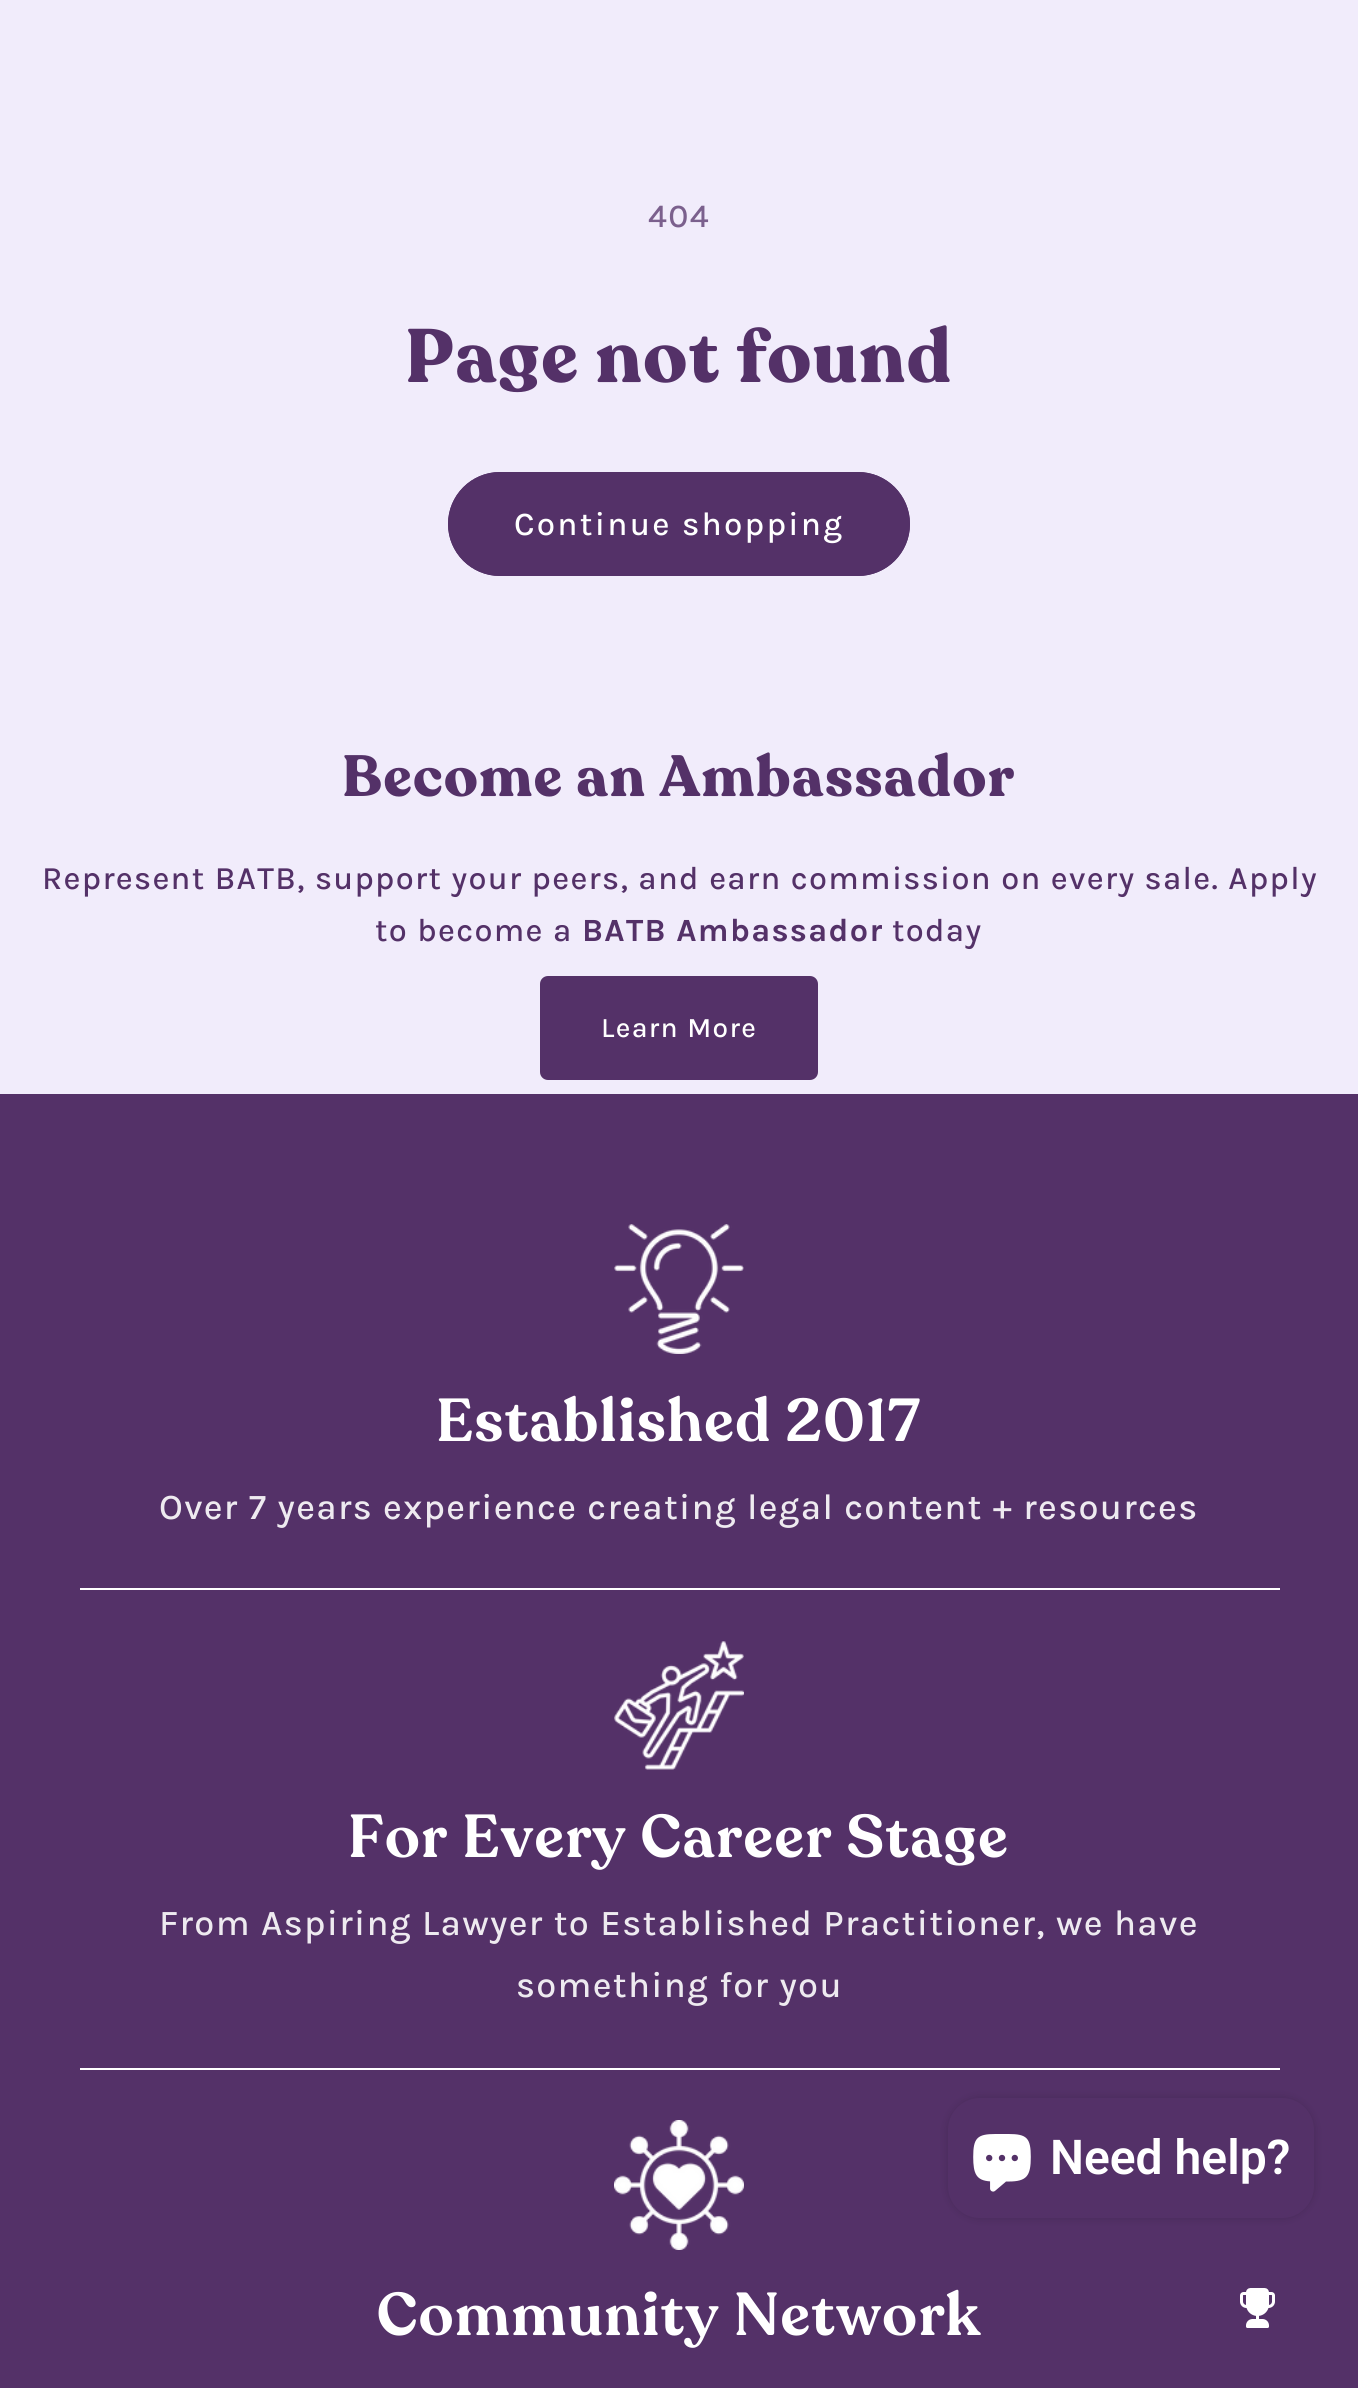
import math
import cairo


def use_color(cr, r, g, b):
  cr.set_source_rgb(r / 255, g / 255, b / 255)

def text(cr, x, y, s, family, size, color, bold=False, italic=False):
  cr.select_font_face(family, cairo.FONT_SLANT_ITALIC if italic else cairo.FONT_SLANT_NORMAL, cairo.FONT_WEIGHT_BOLD if bold else cairo.FONT_WEIGHT_NORMAL)
  cr.set_font_size(size)
  use_color(cr, *color)
  cr.move_to(x, y)
  cr.show_text(s)

def spaced_text(cr, x, y, s, letter, word):
  cr.move_to(x, y)
  for ch in s:
    cr.show_text(ch)
    cr.rel_move_to(letter + word * (ch == ' '), 0)

def box(cr, x, y, w, h, *color):
  use_color(cr, *color)
  cr.rectangle(x, y, w, h)
  cr.fill()

def round_rect(cr, x, y, w, h, r):
  cr.new_sub_path()
  for i, (u, v) in enumerate([(x + w - r, y + h - r), (x + r, y + h - r), (x + r, y + r), (x + w - r, y + r)]):
    cr.arc(u, v, r, i * math.pi / 2, (i + 1) * math.pi / 2)
  cr.close_path()

def shadow(cr, x, y, w, h, r, blur, alpha):
  cr.push_group_with_content(cairo.CONTENT_ALPHA)
  cr.set_operator(cairo.OPERATOR_SOURCE)
  for i in range(15, -16, -2):
    e = blur * i / 6
    if min(w, h) + 2 * e > 0:
      cr.set_source_rgba(0, 0, 0, alpha * math.erfc((i - 1) / 8.5) / 2)
      round_rect(cr, x - e, y - e, w + 2 * e, h + 2 * e, max(0, min(r + e + blur * .6, min(w, h) / 2 + e)))
      cr.fill()
  cr.mask(cr.pop_group())

def picture(cr, path, x, y, w, h):
  cr.save()
  cr.set_source_surface(cairo.ImageSurface.create_from_png(path), x, y)
  cr.rectangle(x, y, w, h)
  cr.fill()
  cr.restore()

def draw(cr):
  use_color(cr, 241, 236, 251)
  cr.paint()
  use_color(cr, 84, 49, 104)
  round_rect(cr, 448, 472, 462, 104, 52)
  cr.fill()
  round_rect(cr, 449, 473, 460, 102, 51)
  cr.stroke()
  round_rect(cr, 540, 976, 278, 104, 8)
  cr.fill()
  box(cr, 0, 1094, 1358, 1294, 84, 49, 104)
  box(cr, 80, 1588, 1200, 2, 255, 255, 255)
  picture(cr, "img_01.png", 614, 1224, 130, 130)
  box(cr, 80, 2068, 1200, 2, 255, 255, 255)
  picture(cr, "img_02.png", 614, 1641, 130, 129)
  picture(cr, "img_03.png", 614, 2120, 130, 130)
  use_color(cr, 0, 0, 0)
  shadow(cr, 948, 2098, 366, 120, 32, 5, 0.15)
  use_color(cr, 84, 49, 104)
  round_rect(cr, 948, 2098, 366, 120, 32)
  cr.fill()
  picture(cr, "img_04.png", 973, 2134, 58, 58)
  picture(cr, "img_05.png", 1240, 2288, 35, 40)
  cr.select_font_face("Karla Medium")
  cr.set_font_size(33)
  use_color(cr, 123, 96, 141)
  spaced_text(cr, 648, 227, "404", 1.32, 0)
  cr.select_font_face("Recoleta", cairo.FONT_SLANT_NORMAL, cairo.FONT_WEIGHT_BOLD)
  cr.set_font_size(75)
  use_color(cr, 84, 49, 104)
  spaced_text(cr, 405, 382, "Page not found", 1.5, 0)
  cr.select_font_face("Karla Medium")
  cr.set_font_size(33)
  use_color(cr, 255, 255, 255)
  spaced_text(cr, 514, 535, "Continue shopping", 2.25, 0)
  cr.select_font_face("Recoleta", cairo.FONT_SLANT_NORMAL, cairo.FONT_WEIGHT_BOLD)
  cr.set_font_size(57.6)
  use_color(cr, 84, 49, 104)
  spaced_text(cr, 342, 796, "Become an Ambassador", 1.5, 0)
  cr.select_font_face("Karla Medium")
  cr.set_font_size(32.4)
  spaced_text(cr, 42, 889, "Represent BATB, support your peers, and earn commission on every sale. Apply", 1.32, 0)
  spaced_text(cr, 375, 941, "to become a", 1.32, 0)
  cr.select_font_face("Karla", cairo.FONT_SLANT_NORMAL, cairo.FONT_WEIGHT_BOLD)
  spaced_text(cr, 582, 941, "BATB Ambassador", 1.32, 0)
  cr.select_font_face("Karla Medium")
  spaced_text(cr, 892, 941, "today", 1.32, 0)
  cr.set_font_size(28)
  use_color(cr, 255, 255, 255)
  spaced_text(cr, 601, 1037, "Learn More", 1.32, 0)
  cr.select_font_face("Recoleta SemiBold")
  cr.set_font_size(60)
  spaced_text(cr, 436, 1441, "Established 2017", 1.5, 0)
  cr.select_font_face("Karla Medium")
  cr.set_font_size(36)
  use_color(cr, 238, 234, 240)
  spaced_text(cr, 159, 1519, "Over 7 years experience creating legal content + resources", 1.32, 0)
  cr.select_font_face("Recoleta SemiBold")
  cr.set_font_size(60)
  use_color(cr, 255, 255, 255)
  spaced_text(cr, 348, 1857, "For Every Career Stage", 1.5, 0)
  cr.select_font_face("Karla Medium")
  cr.set_font_size(36)
  use_color(cr, 238, 234, 240)
  spaced_text(cr, 159, 1935, "From Aspiring Lawyer to Established Practitioner, we have", 1.32, 0)
  spaced_text(cr, 516, 1997, "something for you", 1.32, 0)
  cr.select_font_face("Recoleta SemiBold")
  cr.set_font_size(60)
  use_color(cr, 255, 255, 255)
  spaced_text(cr, 377, 2335, "Community Network", 1.5, 0)
  text(cr, 1050, 2174, "Need help?", "Roboto SemiBold", 48, (255, 255, 255))


surface = cairo.ImageSurface(cairo.FORMAT_RGB24, 1358, 2388)
cr = cairo.Context(surface)
options = cairo.FontOptions()
options.set_hint_metrics(cairo.HINT_METRICS_OFF)
options.set_hint_style(cairo.HINT_STYLE_NONE)
cr.set_font_options(options)
cr.set_miter_limit(4)
draw(cr)
surface.write_to_png("out.png")
